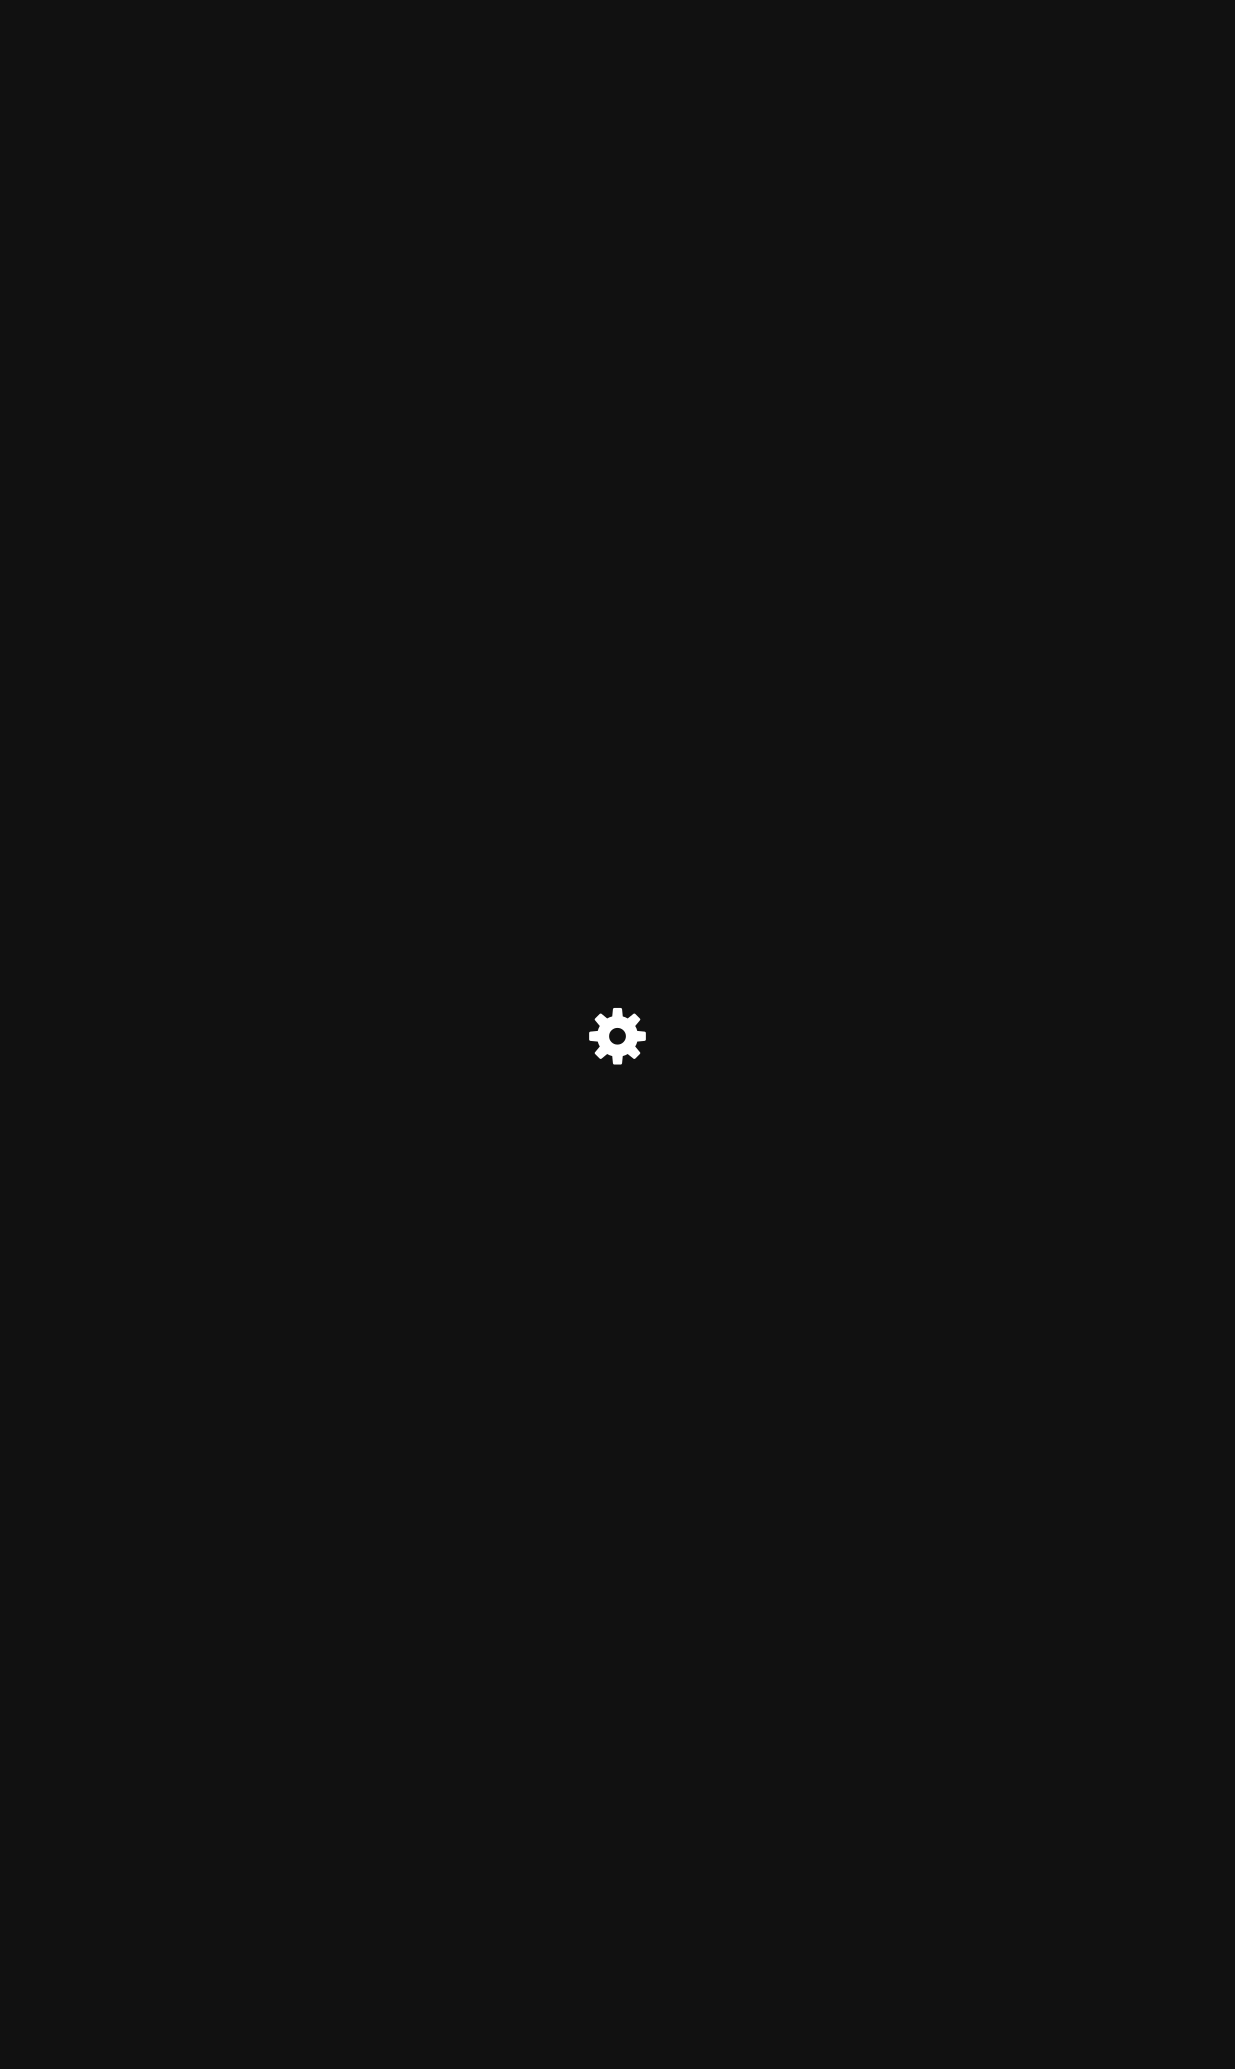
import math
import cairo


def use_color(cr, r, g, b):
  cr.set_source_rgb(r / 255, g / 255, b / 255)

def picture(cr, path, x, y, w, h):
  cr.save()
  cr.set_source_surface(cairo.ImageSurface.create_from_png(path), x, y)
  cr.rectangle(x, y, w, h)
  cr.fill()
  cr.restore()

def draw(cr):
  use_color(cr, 255, 255, 255)
  cr.paint()
  picture(cr, "img_01.png", 0, 0, 1235, 2069)
  picture(cr, "img_02.png", 589, 1007, 57, 58)


surface = cairo.ImageSurface(cairo.FORMAT_RGB24, 1235, 2069)
cr = cairo.Context(surface)
options = cairo.FontOptions()
options.set_hint_metrics(cairo.HINT_METRICS_OFF)
options.set_hint_style(cairo.HINT_STYLE_NONE)
cr.set_font_options(options)
cr.set_miter_limit(4)
draw(cr)
surface.write_to_png("out.png")
